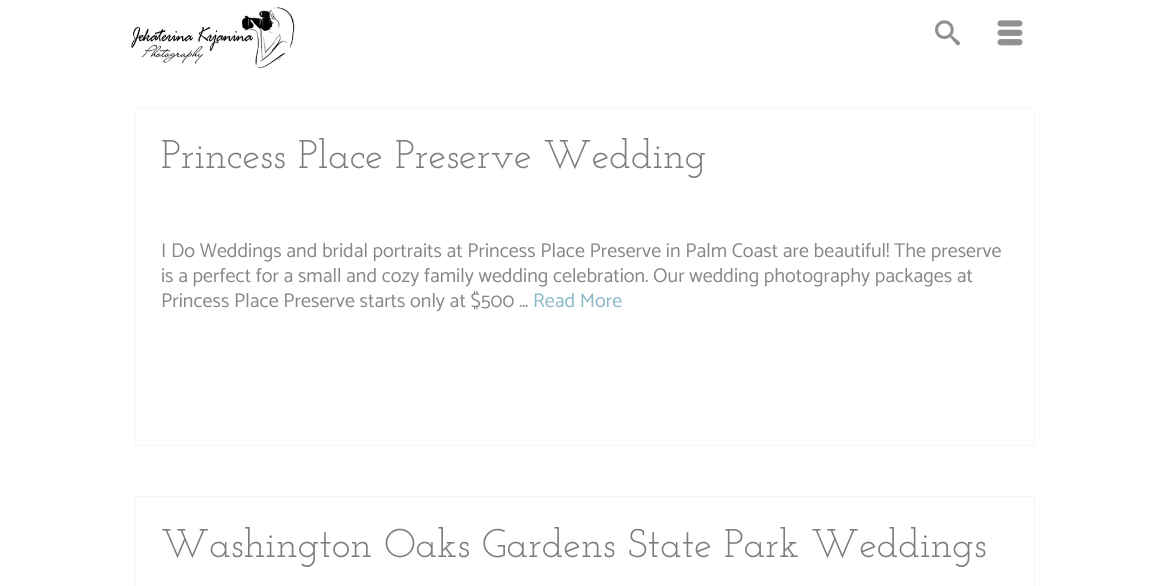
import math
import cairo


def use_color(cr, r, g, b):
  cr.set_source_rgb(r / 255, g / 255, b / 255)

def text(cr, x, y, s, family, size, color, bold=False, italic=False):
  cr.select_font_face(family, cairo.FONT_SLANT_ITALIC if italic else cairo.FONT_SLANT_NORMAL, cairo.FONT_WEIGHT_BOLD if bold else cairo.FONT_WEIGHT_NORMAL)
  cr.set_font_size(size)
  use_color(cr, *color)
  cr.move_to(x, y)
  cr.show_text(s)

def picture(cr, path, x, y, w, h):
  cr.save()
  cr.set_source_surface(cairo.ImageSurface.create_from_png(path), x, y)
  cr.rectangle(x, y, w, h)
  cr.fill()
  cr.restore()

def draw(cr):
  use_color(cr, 255, 255, 255)
  cr.paint()
  picture(cr, "img_01.png", 131, 7, 164, 62)
  picture(cr, "img_02.png", 935, 20, 25, 26)
  picture(cr, "img_03.png", 997, 20, 26, 26)
  cr.rectangle(135.5, 108.5, 899, 337)
  use_color(cr, 247, 247, 247)
  cr.set_line_width(1)
  cr.stroke()
  cr.rectangle(135.5, 496.5, 899, 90)
  cr.stroke()
  text(cr, 161, 168, "Princess Place Preserve Wedding", "Josefin Slab", 40, (124, 124, 124))
  text(cr, 161, 257, "I Do Weddings and bridal portraits at Princess Place Preserve in Palm Coast are beautiful! The preserve", "Catamaran", 20, (135, 135, 135))
  text(cr, 161, 282, "is a perfect for a small and cozy family wedding celebration. Our wedding photography packages at", "Catamaran", 20, (135, 135, 135))
  text(cr, 161, 307, "Princess Place Preserve starts only at $500 …", "Catamaran", 20, (135, 135, 135))
  text(cr, 533, 307, "Read More", "Catamaran", 20, (136, 183, 200))
  text(cr, 161, 557, "Washington Oaks Gardens State Park Weddings", "Josefin Slab", 40, (124, 124, 124))


surface = cairo.ImageSurface(cairo.FORMAT_RGB24, 1169, 586)
cr = cairo.Context(surface)
options = cairo.FontOptions()
options.set_hint_metrics(cairo.HINT_METRICS_OFF)
options.set_hint_style(cairo.HINT_STYLE_NONE)
cr.set_font_options(options)
cr.set_miter_limit(4)
draw(cr)
surface.write_to_png("out.png")
